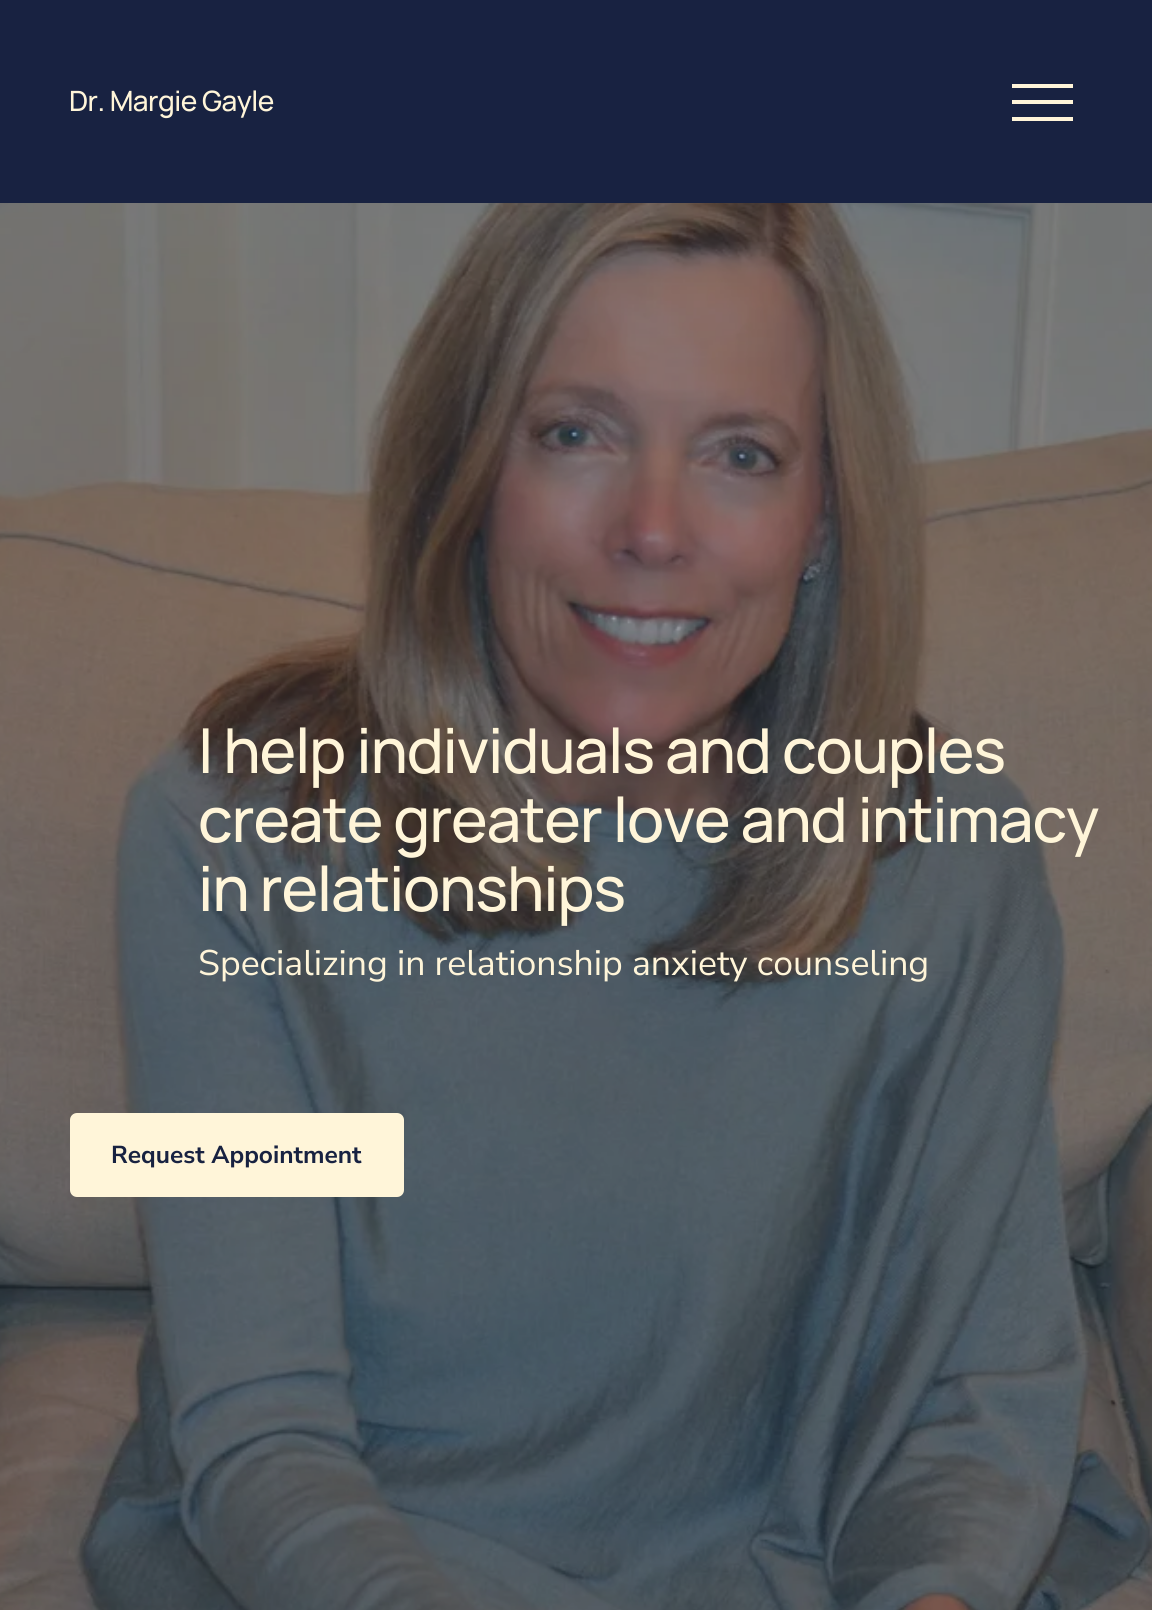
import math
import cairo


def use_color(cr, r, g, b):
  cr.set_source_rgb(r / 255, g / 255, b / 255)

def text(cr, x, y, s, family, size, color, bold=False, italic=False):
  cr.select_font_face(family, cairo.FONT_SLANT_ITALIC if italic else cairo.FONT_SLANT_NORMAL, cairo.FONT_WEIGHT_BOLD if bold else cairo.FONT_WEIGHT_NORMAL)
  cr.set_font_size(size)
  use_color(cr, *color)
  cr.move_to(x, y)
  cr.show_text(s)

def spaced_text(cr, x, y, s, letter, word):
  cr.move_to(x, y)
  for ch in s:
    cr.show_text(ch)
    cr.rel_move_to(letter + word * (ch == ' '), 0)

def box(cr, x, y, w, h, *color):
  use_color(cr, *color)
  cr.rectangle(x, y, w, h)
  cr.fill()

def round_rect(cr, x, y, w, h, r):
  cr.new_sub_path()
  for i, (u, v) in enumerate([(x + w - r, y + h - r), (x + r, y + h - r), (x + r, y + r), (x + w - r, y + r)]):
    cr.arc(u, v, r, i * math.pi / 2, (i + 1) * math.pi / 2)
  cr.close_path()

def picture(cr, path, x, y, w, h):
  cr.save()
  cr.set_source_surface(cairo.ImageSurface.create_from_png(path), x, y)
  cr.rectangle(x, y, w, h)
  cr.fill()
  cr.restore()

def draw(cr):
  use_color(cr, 255, 255, 255)
  cr.paint()
  box(cr, 0, 0, 1152, 203, 24, 34, 65)
  box(cr, 1012, 84, 61, 4, 255, 245, 217)
  box(cr, 1012, 100, 61, 4, 255, 245, 217)
  box(cr, 1012, 117, 61, 4, 255, 245, 217)
  picture(cr, "img_01.png", 0, 203, 1152, 1407)
  round_rect(cr, 70, 1113, 334, 84, 7)
  cr.fill()
  cr.select_font_face("Manrope Medium")
  cr.set_font_size(28)
  spaced_text(cr, 69, 111, "Dr. Margie Gayle", -0.5, 0)
  cr.set_font_size(62)
  spaced_text(cr, 198, 773, "I help individuals and couples", -1.25, 0)
  spaced_text(cr, 198, 842, "create greater love and intimacy", -1.25, 0)
  spaced_text(cr, 198, 911, "in relationships", -1.25, 0)
  text(cr, 198, 975, "Specializing in relationship anxiety counseling", "Nunito Sans", 35.6, (255, 245, 217))
  text(cr, 111, 1163, "Request Appointment", "Nunito Sans", 24.5, (24, 34, 65), bold=True)


surface = cairo.ImageSurface(cairo.FORMAT_RGB24, 1152, 1610)
cr = cairo.Context(surface)
options = cairo.FontOptions()
options.set_hint_metrics(cairo.HINT_METRICS_OFF)
options.set_hint_style(cairo.HINT_STYLE_NONE)
cr.set_font_options(options)
cr.set_miter_limit(4)
draw(cr)
surface.write_to_png("out.png")
